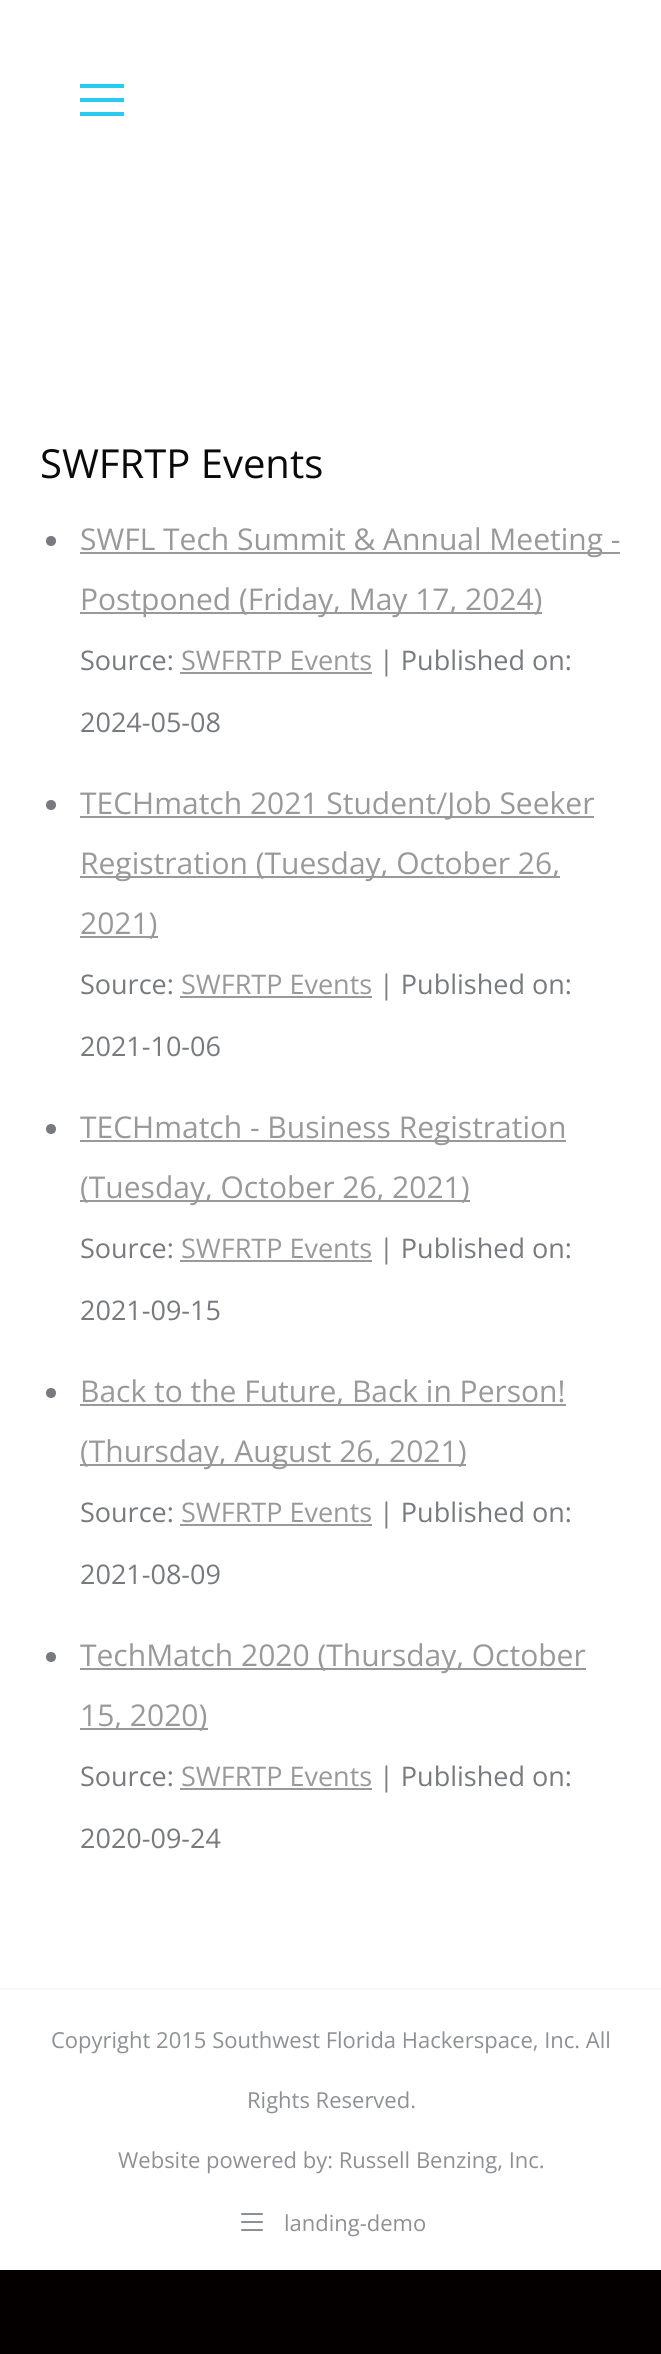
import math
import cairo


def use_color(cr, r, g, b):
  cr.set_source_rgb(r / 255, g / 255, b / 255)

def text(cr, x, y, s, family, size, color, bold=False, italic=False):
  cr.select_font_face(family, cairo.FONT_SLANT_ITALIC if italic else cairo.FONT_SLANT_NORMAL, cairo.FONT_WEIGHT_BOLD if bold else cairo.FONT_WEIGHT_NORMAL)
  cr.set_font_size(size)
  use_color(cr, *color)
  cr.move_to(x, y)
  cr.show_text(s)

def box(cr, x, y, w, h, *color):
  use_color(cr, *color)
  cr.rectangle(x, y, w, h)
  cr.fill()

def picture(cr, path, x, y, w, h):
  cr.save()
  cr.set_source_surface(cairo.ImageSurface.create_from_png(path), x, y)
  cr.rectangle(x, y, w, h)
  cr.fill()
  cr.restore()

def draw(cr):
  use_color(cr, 5, 0, 0)
  cr.paint()
  box(cr, 0, 0, 661, 2270, 255, 255, 255)
  box(cr, 80, 84, 44, 4, 41, 204, 240)
  box(cr, 80, 98, 44, 4, 41, 204, 240)
  box(cr, 80, 112, 44, 4, 41, 204, 240)
  use_color(cr, 119, 123, 128)
  cr.arc(51, 541, 5, 0, 2 * math.pi)
  cr.fill()
  box(cr, 80, 552, 540, 2, 153, 153, 153)
  box(cr, 80, 612, 462, 2, 153, 153, 153)
  box(cr, 180, 672, 192, 2, 153, 153, 153)
  use_color(cr, 119, 123, 128)
  cr.arc(51, 805, 5, 0, 2 * math.pi)
  cr.fill()
  box(cr, 80, 816, 514, 2, 153, 153, 153)
  box(cr, 80, 876, 480, 2, 153, 153, 153)
  box(cr, 80, 936, 78, 2, 153, 153, 153)
  box(cr, 180, 996, 192, 2, 153, 153, 153)
  use_color(cr, 119, 123, 128)
  cr.arc(51, 1129, 5, 0, 2 * math.pi)
  cr.fill()
  box(cr, 80, 1140, 486, 2, 153, 153, 153)
  box(cr, 80, 1200, 390, 2, 153, 153, 153)
  box(cr, 180, 1260, 192, 2, 153, 153, 153)
  use_color(cr, 119, 123, 128)
  cr.arc(51, 1393, 5, 0, 2 * math.pi)
  cr.fill()
  box(cr, 80, 1404, 486, 2, 153, 153, 153)
  box(cr, 80, 1464, 386, 2, 153, 153, 153)
  box(cr, 180, 1524, 192, 2, 153, 153, 153)
  use_color(cr, 119, 123, 128)
  cr.arc(51, 1657, 5, 0, 2 * math.pi)
  cr.fill()
  box(cr, 80, 1668, 506, 2, 153, 153, 153)
  box(cr, 80, 1728, 128, 2, 153, 153, 153)
  box(cr, 180, 1788, 192, 2, 153, 153, 153)
  box(cr, 0, 1988, 661, 2, 247, 247, 248)
  picture(cr, "img_01.png", 241, 2213, 22, 18)
  text(cr, 40, 478, "SWFRTP Events", "Open Sans", 40, (10, 10, 10))
  text(cr, 80, 550, "SWFL Tech Summit & Annual Meeting -", "Open Sans", 30, (153, 153, 153))
  text(cr, 80, 610, "Postponed (Friday, May 17, 2024)", "Open Sans", 30, (153, 153, 153))
  text(cr, 80, 670, "Source:", "Open Sans", 27, (119, 123, 128))
  text(cr, 181, 670, "SWFRTP Events", "Open Sans", 27, (153, 153, 153))
  text(cr, 379, 670, "| Published on:", "Open Sans", 27, (119, 123, 128))
  text(cr, 80, 732, "2024-05-08", "Open Sans", 27, (119, 123, 128))
  text(cr, 80, 814, "TECHmatch 2021 Student/Job Seeker", "Open Sans", 30, (153, 153, 153))
  text(cr, 80, 874, "Registration (Tuesday, October 26,", "Open Sans", 30, (153, 153, 153))
  text(cr, 80, 934, "2021)", "Open Sans", 30, (153, 153, 153))
  text(cr, 80, 994, "Source:", "Open Sans", 27, (119, 123, 128))
  text(cr, 181, 994, "SWFRTP Events", "Open Sans", 27, (153, 153, 153))
  text(cr, 379, 994, "| Published on:", "Open Sans", 27, (119, 123, 128))
  text(cr, 80, 1056, "2021-10-06", "Open Sans", 27, (119, 123, 128))
  text(cr, 80, 1138, "TECHmatch - Business Registration", "Open Sans", 30, (153, 153, 153))
  text(cr, 80, 1198, "(Tuesday, October 26, 2021)", "Open Sans", 30, (153, 153, 153))
  text(cr, 80, 1258, "Source:", "Open Sans", 27, (119, 123, 128))
  text(cr, 181, 1258, "SWFRTP Events", "Open Sans", 27, (153, 153, 153))
  text(cr, 379, 1258, "| Published on:", "Open Sans", 27, (119, 123, 128))
  text(cr, 80, 1320, "2021-09-15", "Open Sans", 27, (119, 123, 128))
  text(cr, 80, 1402, "Back to the Future, Back in Person!", "Open Sans", 30, (153, 153, 153))
  text(cr, 80, 1462, "(Thursday, August 26, 2021)", "Open Sans", 30, (153, 153, 153))
  text(cr, 80, 1522, "Source:", "Open Sans", 27, (119, 123, 128))
  text(cr, 181, 1522, "SWFRTP Events", "Open Sans", 27, (153, 153, 153))
  text(cr, 379, 1522, "| Published on:", "Open Sans", 27, (119, 123, 128))
  text(cr, 80, 1584, "2021-08-09", "Open Sans", 27, (119, 123, 128))
  text(cr, 80, 1666, "TechMatch 2020 (Thursday, October", "Open Sans", 30, (153, 153, 153))
  text(cr, 80, 1726, "15, 2020)", "Open Sans", 30, (153, 153, 153))
  text(cr, 80, 1786, "Source:", "Open Sans", 27, (119, 123, 128))
  text(cr, 181, 1786, "SWFRTP Events", "Open Sans", 27, (153, 153, 153))
  text(cr, 379, 1786, "| Published on:", "Open Sans", 27, (119, 123, 128))
  text(cr, 80, 1848, "2020-09-24", "Open Sans", 27, (119, 123, 128))
  text(cr, 51, 2048, "Copyright 2015 Southwest Florida Hackerspace, Inc. All", "Open Sans", 22, (141, 144, 149))
  text(cr, 247, 2108, "Rights Reserved.", "Open Sans", 22, (141, 144, 149))
  text(cr, 118, 2168, "Website powered by: Russell Benzing, Inc.", "Open Sans", 22, (141, 144, 149))
  text(cr, 284, 2231, "landing-demo", "Open Sans", 22, (141, 144, 149))


surface = cairo.ImageSurface(cairo.FORMAT_RGB24, 661, 2354)
cr = cairo.Context(surface)
options = cairo.FontOptions()
options.set_hint_metrics(cairo.HINT_METRICS_OFF)
options.set_hint_style(cairo.HINT_STYLE_NONE)
cr.set_font_options(options)
cr.set_miter_limit(4)
draw(cr)
surface.write_to_png("out.png")
